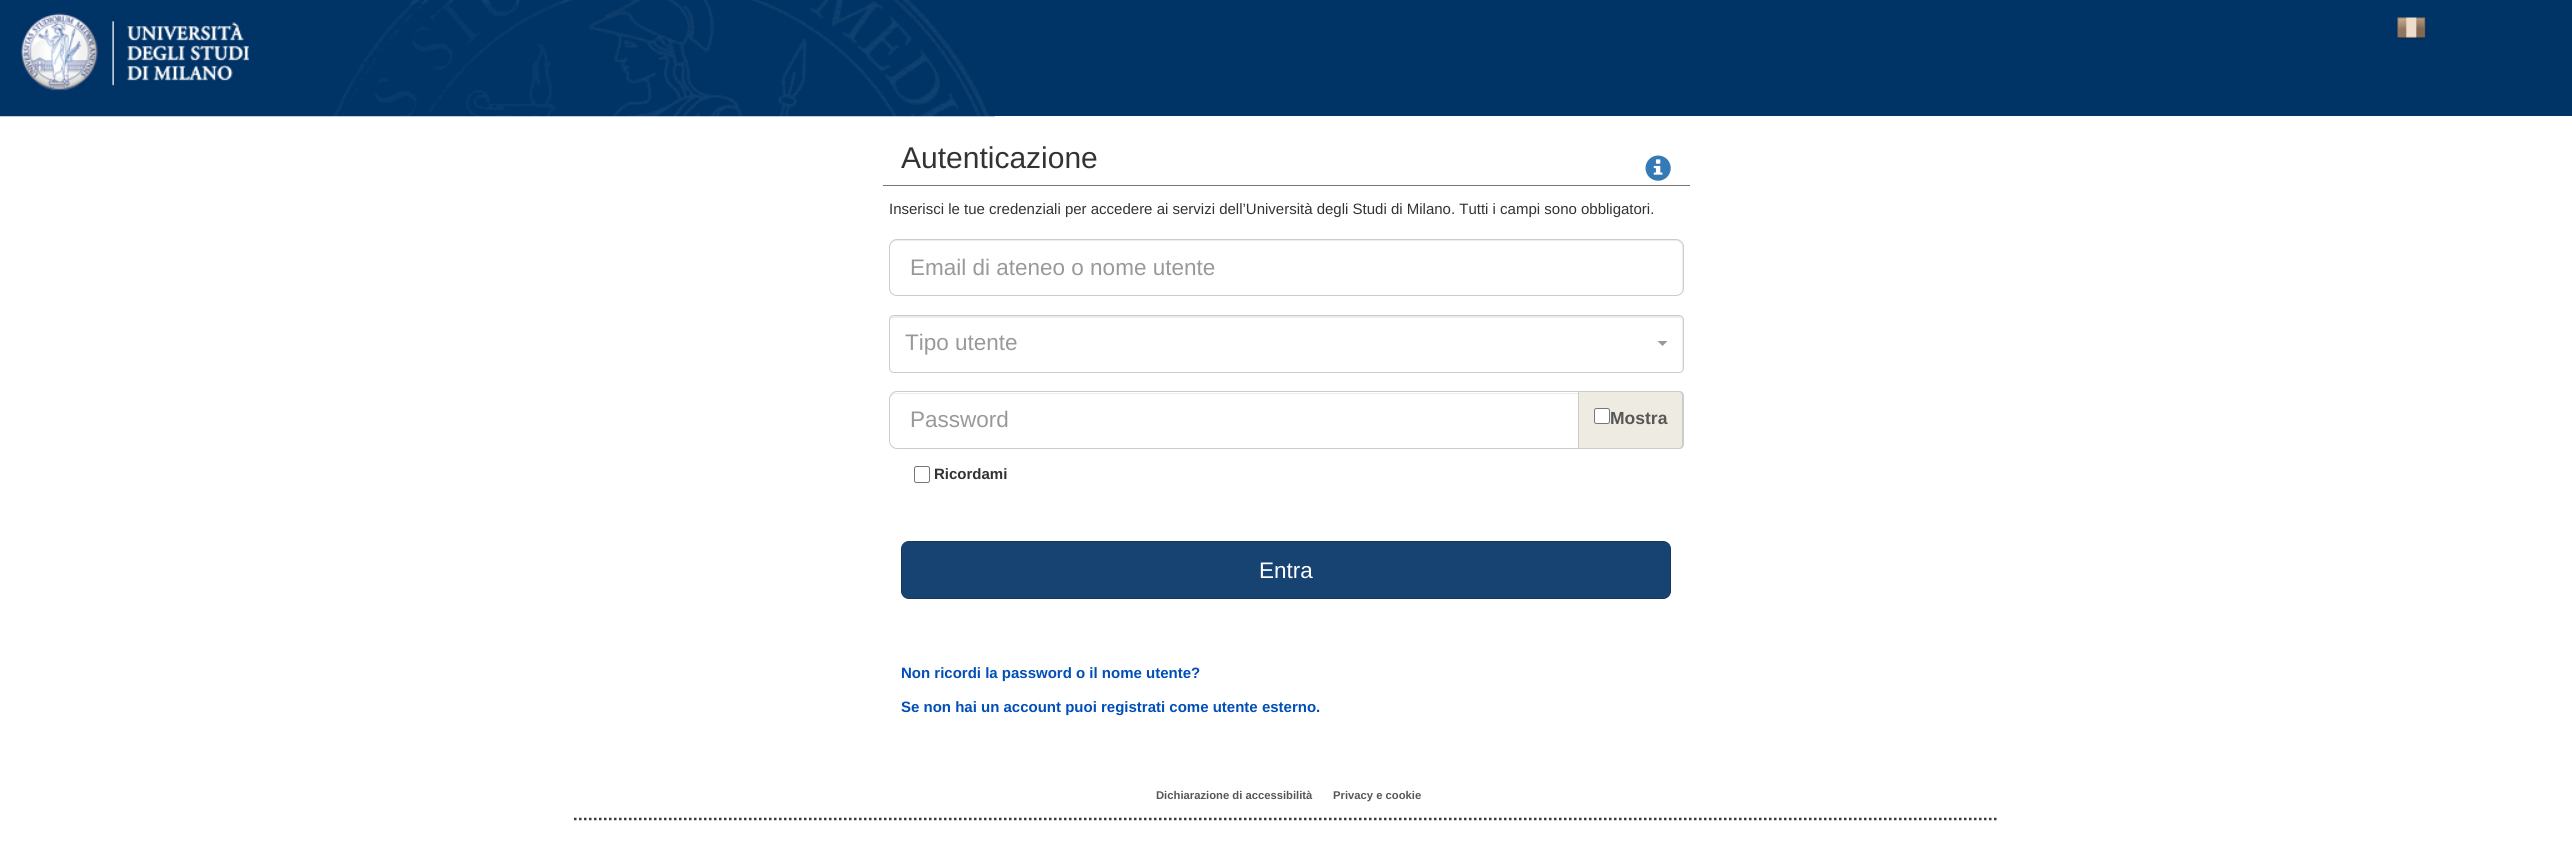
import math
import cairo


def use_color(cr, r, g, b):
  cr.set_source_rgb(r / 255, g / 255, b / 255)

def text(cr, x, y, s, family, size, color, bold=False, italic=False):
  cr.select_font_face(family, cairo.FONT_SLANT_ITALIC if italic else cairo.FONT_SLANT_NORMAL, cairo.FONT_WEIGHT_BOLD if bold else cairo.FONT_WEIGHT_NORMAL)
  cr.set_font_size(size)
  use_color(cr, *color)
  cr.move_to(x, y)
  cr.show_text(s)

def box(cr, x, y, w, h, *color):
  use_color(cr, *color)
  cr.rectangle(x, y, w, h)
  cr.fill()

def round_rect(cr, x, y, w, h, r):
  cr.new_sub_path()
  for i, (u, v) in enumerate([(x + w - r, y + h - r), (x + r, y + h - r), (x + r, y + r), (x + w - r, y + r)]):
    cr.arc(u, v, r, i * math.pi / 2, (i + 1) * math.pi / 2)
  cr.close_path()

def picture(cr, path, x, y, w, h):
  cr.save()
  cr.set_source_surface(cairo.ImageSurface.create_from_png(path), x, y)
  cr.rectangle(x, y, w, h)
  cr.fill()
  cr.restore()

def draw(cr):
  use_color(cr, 255, 255, 255)
  cr.paint()
  box(cr, 995, 0, 1577, 116, 0, 52, 102)
  picture(cr, "img_01.png", 0, 0, 995, 117)
  picture(cr, "img_02.png", 21, 13, 228, 78)
  picture(cr, "img_03.png", 2396, 16, 30, 24)
  box(cr, 883, 185, 807, 1, 119, 119, 119)
  picture(cr, "img_04.png", 1645, 155, 26, 26)
  use_color(cr, 236, 236, 236)
  cr.new_path()
  cr.move_to(896, 241)
  cr.line_to(1676, 241)
  cr.curve_to(1680, 241, 1682, 244, 1682, 248)
  cr.line_to(1682, 290)
  cr.curve_to(1682, 291, 1682, 292, 1681, 293)
  cr.curve_to(1682, 292, 1683, 291, 1683, 289)
  cr.line_to(1683, 246)
  cr.curve_to(1683, 243, 1680, 240, 1677, 240)
  cr.line_to(896, 240)
  cr.curve_to(893, 240, 890, 243, 890, 246)
  cr.line_to(890, 248)
  cr.curve_to(890, 244, 893, 241, 896, 241)
  cr.close_path()
  cr.fill()
  round_rect(cr, 889.5, 239.5, 794, 56, 7.5)
  use_color(cr, 204, 204, 204)
  cr.set_line_width(1)
  cr.stroke()
  use_color(cr, 236, 236, 236)
  cr.new_path()
  cr.move_to(894, 318)
  cr.line_to(1679, 318)
  cr.curve_to(1681, 318, 1682, 319, 1682, 321)
  cr.line_to(1682, 370)
  cr.curve_to(1683, 369, 1683, 368, 1683, 367)
  cr.line_to(1683, 320)
  cr.curve_to(1683, 318, 1681, 316, 1679, 316)
  cr.line_to(894, 316)
  cr.curve_to(892, 316, 890, 318, 890, 320)
  cr.line_to(890, 321)
  cr.curve_to(890, 319, 892, 318, 894, 318)
  cr.close_path()
  cr.fill()
  round_rect(cr, 889.5, 315.5, 794, 57, 4.5)
  use_color(cr, 204, 204, 204)
  cr.stroke()
  use_color(cr, 153, 153, 153)
  cr.new_path()
  cr.move_to(1657.5, 341)
  cr.line_to(1667.5, 341)
  cr.line_to(1662.5, 346)
  cr.close_path()
  cr.fill()
  use_color(cr, 236, 236, 236)
  cr.new_path()
  cr.move_to(896, 394)
  cr.line_to(1578, 394)
  cr.line_to(1578, 393)
  cr.line_to(896, 393)
  cr.curve_to(892, 393, 890, 396, 890, 400)
  cr.curve_to(890, 397, 893, 394, 896, 394)
  cr.close_path()
  cr.fill()
  cr.new_path()
  cr.move_to(897, 391.5)
  cr.line_to(1578.5, 391.5)
  cr.line_to(1578.5, 448.5)
  cr.line_to(897, 448.5)
  cr.curve_to(893, 448.5, 889.5, 445, 889.5, 441)
  cr.line_to(889.5, 399)
  cr.curve_to(889.5, 395, 893, 391.5, 897, 391.5)
  cr.close_path()
  use_color(cr, 204, 204, 204)
  cr.stroke()
  use_color(cr, 238, 235, 226)
  cr.new_path()
  cr.move_to(1579, 391)
  cr.line_to(1679, 391)
  cr.curve_to(1682, 391, 1684, 393, 1684, 396)
  cr.line_to(1684, 444)
  cr.curve_to(1684, 447, 1682, 449, 1679, 449)
  cr.line_to(1579, 449)
  cr.close_path()
  cr.fill()
  use_color(cr, 204, 204, 204)
  cr.set_fill_rule(cairo.FILL_RULE_EVEN_ODD)
  cr.new_path()
  cr.move_to(1579, 391)
  cr.line_to(1679, 391)
  cr.curve_to(1682, 391, 1684, 393, 1684, 396)
  cr.line_to(1684, 444)
  cr.curve_to(1684, 447, 1682, 449, 1679, 449)
  cr.line_to(1579, 449)
  cr.close_path()
  cr.move_to(1579, 392)
  cr.line_to(1679, 392)
  cr.curve_to(1681, 392, 1682, 394, 1682, 396)
  cr.line_to(1682, 444)
  cr.curve_to(1682, 446, 1681, 448, 1679, 448)
  cr.line_to(1579, 448)
  cr.close_path()
  cr.fill()
  use_color(cr, 255, 255, 255)
  round_rect(cr, 1594.5, 408.5, 15, 15, 2)
  cr.fill_preserve()
  use_color(cr, 118, 118, 118)
  cr.stroke()
  round_rect(cr, 914.5, 466.5, 15, 16, 2)
  cr.stroke()
  use_color(cr, 23, 67, 114)
  round_rect(cr, 901.5, 541.5, 769, 57, 7.5)
  cr.fill_preserve()
  use_color(cr, 19, 55, 93)
  cr.stroke()
  cr.new_path()
  cr.move_to(574, 819)
  cr.line_to(1999, 819)
  use_color(cr, 60, 60, 60)
  cr.set_line_width(2.5)
  cr.set_dash([2.5, 2.5])
  cr.stroke()
  text(cr, 901, 168, "Autenticazione", "Liberation Sans", 30, (51, 51, 51))
  text(cr, 889, 214, "Inserisci le tue credenziali per accedere ai servizi dell’Università degli Studi di Milano. Tutti i campi sono obbligatori.", "Liberation Sans", 15, (51, 51, 51))
  text(cr, 910, 275, "Email di ateneo o nome utente", "Liberation Sans", 22.5, (153, 153, 153))
  text(cr, 905, 350, "Tipo utente", "Liberation Sans", 22.5, (153, 153, 153))
  text(cr, 910, 427, "Password", "Liberation Sans", 22.5, (153, 153, 153))
  text(cr, 1610, 424, "Mostra", "Liberation Sans", 17.5, (87, 87, 87), bold=True)
  text(cr, 934, 479, "Ricordami", "Liberation Sans", 15, (51, 51, 51), bold=True)
  text(cr, 1259, 578, "Entra", "Liberation Sans", 22.5, (255, 255, 255))
  text(cr, 901, 678, "Non ricordi la password o il nome utente?", "Liberation Sans", 15, (1, 78, 183), bold=True)
  text(cr, 901, 712, "Se non hai un account puoi registrati come utente esterno.", "Liberation Sans", 15, (1, 78, 183), bold=True)
  text(cr, 1156, 799, "Dichiarazione di accessibilità", "Liberation Sans", 11.25, (87, 87, 87), bold=True)
  text(cr, 1333, 799, "Privacy e cookie", "Liberation Sans", 11.25, (87, 87, 87), bold=True)


surface = cairo.ImageSurface(cairo.FORMAT_RGB24, 2572, 846)
cr = cairo.Context(surface)
options = cairo.FontOptions()
options.set_hint_metrics(cairo.HINT_METRICS_OFF)
options.set_hint_style(cairo.HINT_STYLE_NONE)
cr.set_font_options(options)
cr.set_miter_limit(4)
draw(cr)
surface.write_to_png("out.png")
